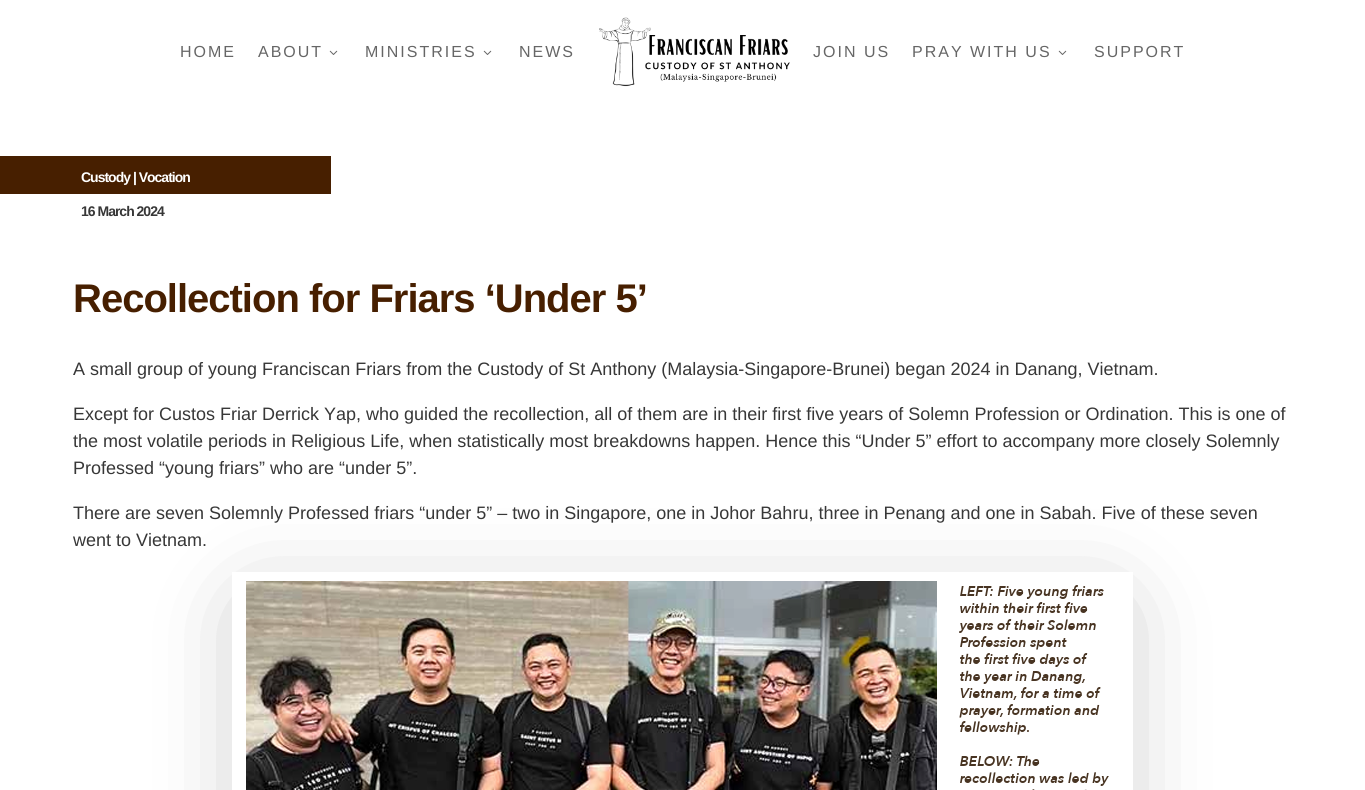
import math
import cairo


def use_color(cr, r, g, b):
  cr.set_source_rgb(r / 255, g / 255, b / 255)

def text(cr, x, y, s, family, size, color, bold=False, italic=False):
  cr.select_font_face(family, cairo.FONT_SLANT_ITALIC if italic else cairo.FONT_SLANT_NORMAL, cairo.FONT_WEIGHT_BOLD if bold else cairo.FONT_WEIGHT_NORMAL)
  cr.set_font_size(size)
  use_color(cr, *color)
  cr.move_to(x, y)
  cr.show_text(s)

def spaced_text(cr, x, y, s, letter, word):
  cr.move_to(x, y)
  for ch in s:
    cr.show_text(ch)
    cr.rel_move_to(letter + word * (ch == ' '), 0)

def box(cr, x, y, w, h, *color):
  use_color(cr, *color)
  cr.rectangle(x, y, w, h)
  cr.fill()

def round_rect(cr, x, y, w, h, r):
  cr.new_sub_path()
  for i, (u, v) in enumerate([(x + w - r, y + h - r), (x + r, y + h - r), (x + r, y + r), (x + w - r, y + r)]):
    cr.arc(u, v, r, i * math.pi / 2, (i + 1) * math.pi / 2)
  cr.close_path()

def shadow(cr, x, y, w, h, r, blur, alpha):
  cr.push_group_with_content(cairo.CONTENT_ALPHA)
  cr.set_operator(cairo.OPERATOR_SOURCE)
  for i in range(15, -16, -2):
    e = blur * i / 6
    if min(w, h) + 2 * e > 0:
      cr.set_source_rgba(0, 0, 0, alpha * math.erfc((i - 1) / 8.5) / 2)
      round_rect(cr, x - e, y - e, w + 2 * e, h + 2 * e, max(0, min(r + e + blur * .6, min(w, h) / 2 + e)))
      cr.fill()
  cr.mask(cr.pop_group())

def picture(cr, path, x, y, w, h):
  cr.save()
  cr.set_source_surface(cairo.ImageSurface.create_from_png(path), x, y)
  cr.rectangle(x, y, w, h)
  cr.fill()
  cr.restore()

def draw(cr):
  use_color(cr, 255, 255, 255)
  cr.paint()
  picture(cr, "img_01.png", 329, 50, 9, 5)
  picture(cr, "img_01.png", 483, 50, 9, 5)
  picture(cr, "img_02.png", 599, 17, 191, 70)
  picture(cr, "img_01.png", 1058, 50, 9, 5)
  box(cr, 0, 156, 331, 38, 71, 31, 0)
  cr.save()
  cr.set_fill_rule(cairo.FILL_RULE_EVEN_ODD)
  cr.new_path()
  cr.move_to(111, 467)
  cr.line_to(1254, 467)
  cr.line_to(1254, 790)
  cr.line_to(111, 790)
  cr.close_path()
  cr.move_to(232, 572)
  cr.line_to(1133, 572)
  cr.line_to(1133, 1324)
  cr.line_to(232, 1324)
  cr.close_path()
  cr.clip()
  use_color(cr, 0, 0, 0)
  shadow(cr, 256, 612, 853, 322, 0, 48, 0.3)
  cr.restore()
  picture(cr, "img_03.png", 246, 581, 863, 209)
  cr.select_font_face("Liberation Sans")
  cr.set_font_size(16)
  use_color(cr, 102, 102, 102)
  spaced_text(cr, 180, 57, "HOME", 2, 0)
  spaced_text(cr, 258, 57, "ABOUT", 2, 0)
  spaced_text(cr, 365, 57, "MINISTRIES", 2, 0)
  spaced_text(cr, 519, 57, "NEWS", 2, 0)
  spaced_text(cr, 813, 57, "JOIN US", 2, 0)
  spaced_text(cr, 912, 57, "PRAY WITH US", 2, 0)
  spaced_text(cr, 1094, 57, "SUPPORT", 2, 0)
  cr.select_font_face("Liberation Sans", cairo.FONT_SLANT_NORMAL, cairo.FONT_WEIGHT_BOLD)
  cr.set_font_size(14)
  use_color(cr, 255, 255, 255)
  spaced_text(cr, 81, 182, "Custody | Vocation", -1, 0)
  use_color(cr, 55, 55, 55)
  spaced_text(cr, 81, 216, "16 March 2024", -1, 0)
  cr.set_font_size(40)
  use_color(cr, 71, 31, 0)
  spaced_text(cr, 73, 312, "Recollection for Friars ‘Under 5’", -1, 0)
  text(cr, 73, 375, "A small group of young Franciscan Friars from the Custody of St Anthony (Malaysia-Singapore-Brunei) began 2024 in Danang, Vietnam.", "Liberation Sans", 18, (55, 55, 55))
  text(cr, 73, 420, "Except for Custos Friar Derrick Yap, who guided the recollection, all of them are in their first five years of Solemn Profession or Ordination. This is one of", "Liberation Sans", 18, (55, 55, 55))
  text(cr, 73, 447, "the most volatile periods in Religious Life, when statistically most breakdowns happen. Hence this “Under 5” effort to accompany more closely Solemnly", "Liberation Sans", 18, (55, 55, 55))
  text(cr, 73, 474, "Professed “young friars” who are “under 5”.", "Liberation Sans", 18, (55, 55, 55))
  text(cr, 73, 519, "There are seven Solemnly Professed friars “under 5” – two in Singapore, one in Johor Bahru, three in Penang and one in Sabah. Five of these seven", "Liberation Sans", 18, (55, 55, 55))
  text(cr, 73, 546, "went to Vietnam.", "Liberation Sans", 18, (55, 55, 55))


surface = cairo.ImageSurface(cairo.FORMAT_RGB24, 1365, 790)
cr = cairo.Context(surface)
options = cairo.FontOptions()
options.set_hint_metrics(cairo.HINT_METRICS_OFF)
options.set_hint_style(cairo.HINT_STYLE_NONE)
cr.set_font_options(options)
cr.set_miter_limit(4)
draw(cr)
surface.write_to_png("out.png")
